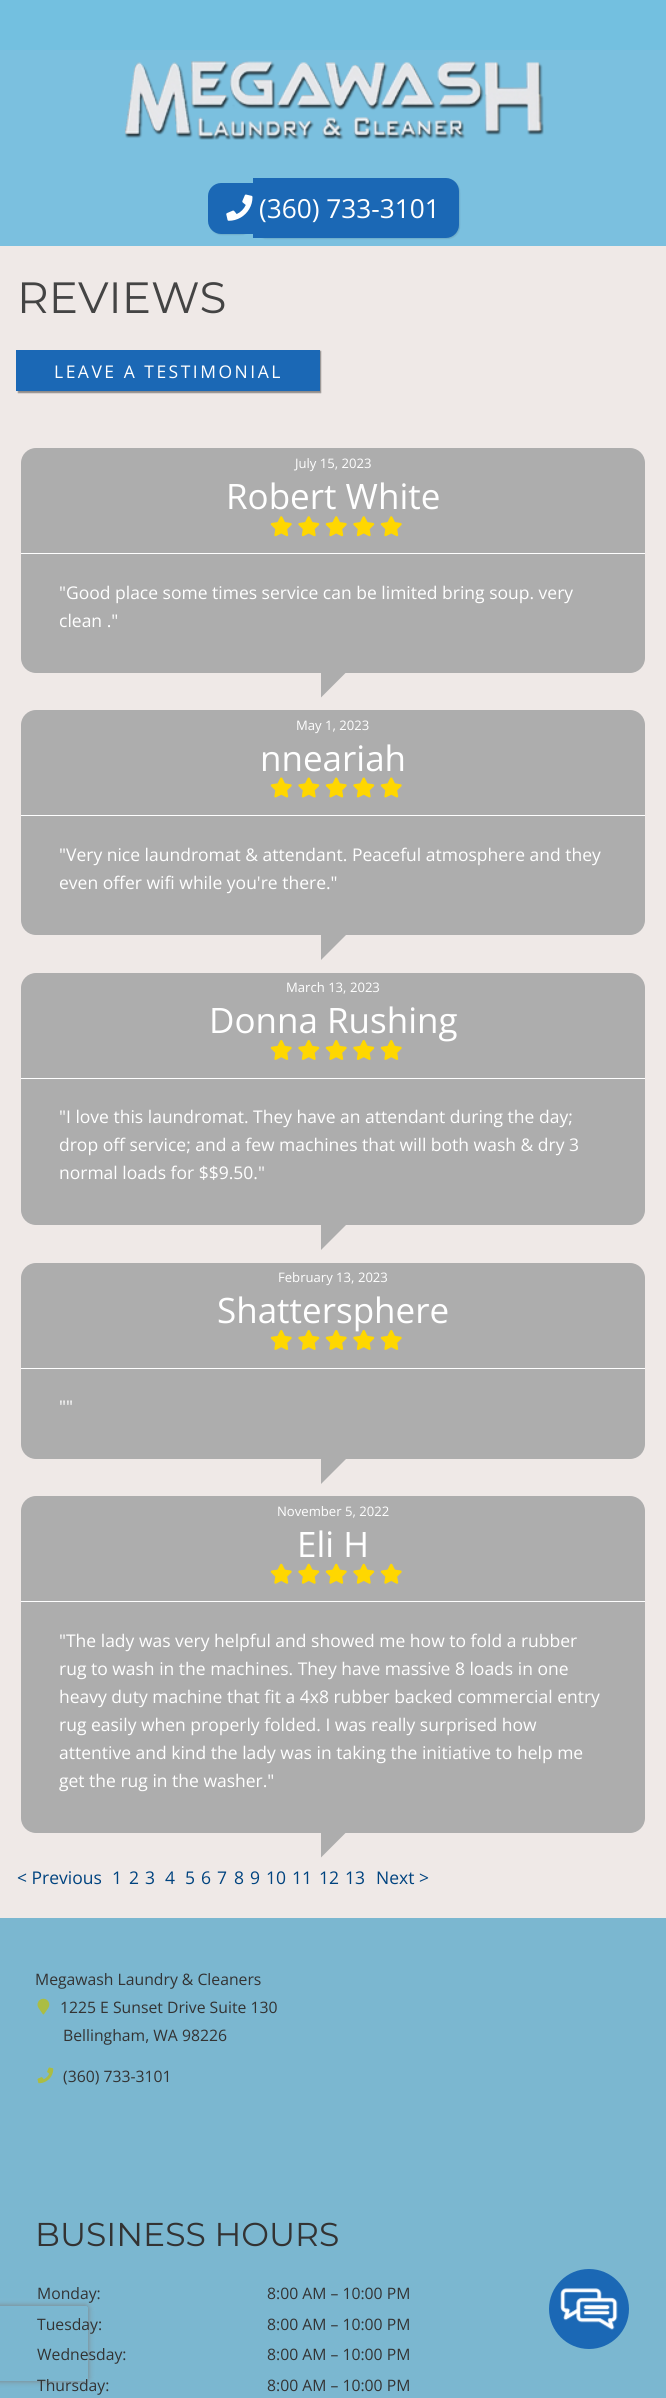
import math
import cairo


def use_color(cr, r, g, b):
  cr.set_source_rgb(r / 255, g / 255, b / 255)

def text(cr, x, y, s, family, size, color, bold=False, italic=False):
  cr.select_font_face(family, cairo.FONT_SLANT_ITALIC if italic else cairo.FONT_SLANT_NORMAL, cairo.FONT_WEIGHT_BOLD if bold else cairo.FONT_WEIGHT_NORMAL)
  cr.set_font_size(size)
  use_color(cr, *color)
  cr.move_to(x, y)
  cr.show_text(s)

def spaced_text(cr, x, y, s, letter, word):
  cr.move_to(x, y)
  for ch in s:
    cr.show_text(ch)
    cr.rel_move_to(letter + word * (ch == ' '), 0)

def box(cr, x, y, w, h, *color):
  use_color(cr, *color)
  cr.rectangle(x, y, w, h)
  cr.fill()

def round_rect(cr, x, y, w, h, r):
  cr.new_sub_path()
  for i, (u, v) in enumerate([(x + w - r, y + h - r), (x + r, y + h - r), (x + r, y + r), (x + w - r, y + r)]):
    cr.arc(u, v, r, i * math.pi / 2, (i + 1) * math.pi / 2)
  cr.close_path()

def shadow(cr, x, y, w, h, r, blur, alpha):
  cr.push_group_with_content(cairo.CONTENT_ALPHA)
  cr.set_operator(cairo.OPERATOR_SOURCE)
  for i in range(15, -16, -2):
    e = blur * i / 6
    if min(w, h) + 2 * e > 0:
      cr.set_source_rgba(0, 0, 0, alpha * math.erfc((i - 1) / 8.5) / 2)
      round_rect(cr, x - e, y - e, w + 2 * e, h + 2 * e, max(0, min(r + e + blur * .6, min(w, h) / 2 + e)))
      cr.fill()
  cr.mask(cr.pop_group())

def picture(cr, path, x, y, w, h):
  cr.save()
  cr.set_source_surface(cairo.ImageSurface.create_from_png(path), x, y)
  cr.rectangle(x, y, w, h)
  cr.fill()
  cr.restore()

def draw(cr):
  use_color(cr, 239, 233, 231)
  cr.paint()
  box(cr, 0, 0, 666, 50, 115, 192, 224)
  box(cr, 0, 50, 666, 196, 123, 192, 223)
  picture(cr, "img_01.png", 124, 61, 420, 79)
  use_color(cr, 0, 0, 0)
  shadow(cr, 209, 184, 45, 51, 13, 0.5, 0.1)
  use_color(cr, 27, 104, 181)
  cr.new_path()
  cr.move_to(221, 183)
  cr.line_to(253, 183)
  cr.line_to(253, 234)
  cr.line_to(221, 234)
  cr.curve_to(214, 234, 208, 228, 208, 221)
  cr.line_to(208, 196)
  cr.curve_to(208, 189, 214, 183, 221, 183)
  cr.close_path()
  cr.fill()
  use_color(cr, 0, 0, 0)
  shadow(cr, 254, 179, 206, 60, 13, 0.5, 0.1)
  use_color(cr, 27, 104, 181)
  cr.new_path()
  cr.move_to(253, 178)
  cr.line_to(446, 178)
  cr.curve_to(453, 178, 459, 184, 459, 191)
  cr.line_to(459, 225)
  cr.curve_to(459, 232, 453, 238, 446, 238)
  cr.line_to(253, 238)
  cr.close_path()
  cr.fill()
  picture(cr, "img_02.png", 226, 194, 27, 27)
  use_color(cr, 0, 0, 0)
  shadow(cr, 18, 351, 303, 42, 0, 0.5, 0.4)
  box(cr, 16, 350, 304, 41, 27, 104, 181)
  use_color(cr, 173, 173, 173)
  round_rect(cr, 21, 448, 624, 225, 15)
  cr.fill()
  box(cr, 21, 553, 624, 1, 255, 255, 255)
  picture(cr, "img_03.png", 270, 516, 22, 21)
  picture(cr, "img_04.png", 298, 516, 22, 21)
  picture(cr, "img_03.png", 325, 516, 22, 21)
  picture(cr, "img_04.png", 353, 516, 22, 21)
  picture(cr, "img_03.png", 380, 516, 22, 21)
  use_color(cr, 173, 173, 173)
  cr.new_path()
  cr.move_to(321, 672.5)
  cr.line_to(346, 672.5)
  cr.line_to(321, 697.5)
  cr.close_path()
  cr.fill()
  round_rect(cr, 21, 710, 624, 225, 15)
  cr.fill()
  box(cr, 21, 815, 624, 1, 255, 255, 255)
  picture(cr, "img_05.png", 270, 777, 22, 21)
  picture(cr, "img_06.png", 298, 777, 22, 21)
  picture(cr, "img_05.png", 325, 777, 22, 21)
  picture(cr, "img_06.png", 353, 777, 22, 21)
  picture(cr, "img_05.png", 380, 777, 22, 21)
  use_color(cr, 173, 173, 173)
  cr.new_path()
  cr.move_to(321, 935)
  cr.line_to(346, 935)
  cr.line_to(321, 960)
  cr.close_path()
  cr.fill()
  round_rect(cr, 21, 973, 624, 252, 15)
  cr.fill()
  box(cr, 21, 1078, 624, 1, 255, 255, 255)
  use_color(cr, 173, 173, 173)
  cr.new_path()
  cr.move_to(321, 1225)
  cr.line_to(346, 1225)
  cr.line_to(321, 1250)
  cr.close_path()
  cr.fill()
  round_rect(cr, 21, 1263, 624, 196, 15)
  cr.fill()
  box(cr, 21, 1368, 624, 1, 255, 255, 255)
  use_color(cr, 173, 173, 173)
  cr.new_path()
  cr.move_to(321, 1459)
  cr.line_to(346, 1459)
  cr.line_to(321, 1484)
  cr.close_path()
  cr.fill()
  round_rect(cr, 21, 1496, 624, 337, 15)
  cr.fill()
  box(cr, 21, 1601, 624, 1, 255, 255, 255)
  picture(cr, "img_10.png", 270, 1563, 22, 21)
  picture(cr, "img_11.png", 298, 1563, 22, 21)
  picture(cr, "img_10.png", 325, 1563, 22, 21)
  picture(cr, "img_11.png", 353, 1563, 22, 21)
  picture(cr, "img_10.png", 380, 1563, 22, 21)
  use_color(cr, 173, 173, 173)
  cr.new_path()
  cr.move_to(321, 1832.5)
  cr.line_to(346, 1832.5)
  cr.line_to(321, 1857.5)
  cr.close_path()
  cr.fill()
  box(cr, 0, 1918, 666, 480, 123, 183, 208)
  picture(cr, "img_12.png", 37, 1998, 13, 17)
  picture(cr, "img_13.png", 37, 2067, 17, 17)
  cr.save()
  cr.set_fill_rule(cairo.FILL_RULE_EVEN_ODD)
  cr.new_path()
  cr.move_to(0, 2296)
  cr.line_to(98, 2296)
  cr.line_to(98, 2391)
  cr.line_to(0, 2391)
  cr.close_path()
  cr.move_to(-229.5, 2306)
  cr.line_to(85.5, 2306)
  cr.curve_to(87, 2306, 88, 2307, 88, 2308.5)
  cr.line_to(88, 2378.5)
  cr.curve_to(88, 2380, 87, 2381, 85.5, 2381)
  cr.line_to(-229.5, 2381)
  cr.curve_to(-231, 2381, -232, 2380, -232, 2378.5)
  cr.line_to(-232, 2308.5)
  cr.curve_to(-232, 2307, -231, 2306, -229.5, 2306)
  cr.close_path()
  cr.clip()
  use_color(cr, 128, 128, 128)
  shadow(cr, -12, 2306, 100, 75, 2.5, 3, 1)
  cr.restore()
  use_color(cr, 27, 104, 181)
  cr.arc(589, 2309, 40, 0, 2 * math.pi)
  cr.fill()
  picture(cr, "img_14.png", 560, 2288, 58, 42)
  text(cr, 259, 218, "(360) 733-3101", "Open Sans", 26.25, (255, 255, 255))
  text(cr, 17, 313, "REVIEWS", "Montserrat Thin", 43.75, (68, 68, 68))
  cr.select_font_face("Open Sans")
  cr.set_font_size(17.5)
  use_color(cr, 255, 255, 255)
  spaced_text(cr, 54, 378, "LEAVE A TESTIMONIAL", 2.5, 0)
  text(cr, 295, 468, "July 15, 2023", "Open Sans", 13.1, (255, 255, 255))
  text(cr, 226, 509, "Robert White", "Open Sans", 35, (255, 255, 255))
  text(cr, 59, 599, "\"Good place some times service can be limited bring soup. very", "Open Sans", 17.5, (255, 255, 255))
  text(cr, 59, 627, "clean .\"", "Open Sans", 17.5, (255, 255, 255))
  text(cr, 296, 730, "May 1, 2023", "Open Sans", 13.1, (255, 255, 255))
  text(cr, 260, 771, "nneariah", "Open Sans", 35, (255, 255, 255))
  text(cr, 59, 861, "\"Very nice laundromat & attendant. Peaceful atmosphere and they", "Open Sans", 17.5, (255, 255, 255))
  text(cr, 59, 889, "even offer wifi while you're there.\"", "Open Sans", 17.5, (255, 255, 255))
  text(cr, 286, 992, "March 13, 2023", "Open Sans", 13.1, (255, 255, 255))
  text(cr, 209, 1033, "Donna Rushing", "Open Sans", 35, (255, 255, 255))
  picture(cr, "img_07.png", 270, 1040, 22, 20)
  picture(cr, "img_08.png", 298, 1040, 22, 20)
  picture(cr, "img_07.png", 325, 1040, 22, 20)
  picture(cr, "img_08.png", 353, 1040, 22, 20)
  picture(cr, "img_07.png", 380, 1040, 22, 20)
  text(cr, 59, 1123, "\"I love this laundromat. They have an attendant during the day;", "Open Sans", 17.5, (255, 255, 255))
  text(cr, 59, 1151, "drop off service; and a few machines that will both wash & dry 3", "Open Sans", 17.5, (255, 255, 255))
  text(cr, 59, 1179, "normal loads for $$9.50.\"", "Open Sans", 17.5, (255, 255, 255))
  text(cr, 278, 1282, "February 13, 2023", "Open Sans", 13.1, (255, 255, 255))
  text(cr, 217, 1323, "Shattersphere", "Open Sans", 35, (255, 255, 255))
  picture(cr, "img_07.png", 270, 1330, 22, 20)
  picture(cr, "img_08.png", 298, 1330, 22, 20)
  picture(cr, "img_07.png", 325, 1330, 22, 20)
  picture(cr, "img_09.png", 353, 1330, 22, 20)
  picture(cr, "img_07.png", 380, 1330, 22, 20)
  text(cr, 59, 1413, "\"\"", "Open Sans", 17.5, (255, 255, 255))
  text(cr, 277, 1516, "November 5, 2022", "Open Sans", 13.1, (255, 255, 255))
  text(cr, 297, 1557, "Eli H", "Open Sans", 35, (255, 255, 255))
  text(cr, 59, 1647, "\"The lady was very helpful and showed me how to fold a rubber", "Open Sans", 17.5, (255, 255, 255))
  text(cr, 59, 1675, "rug to wash in the machines. They have massive 8 loads in one", "Open Sans", 17.5, (255, 255, 255))
  text(cr, 59, 1703, "heavy duty machine that fit a 4x8 rubber backed commercial entry", "Open Sans", 17.5, (255, 255, 255))
  text(cr, 59, 1731, "rug easily when properly folded. I was really surprised how", "Open Sans", 17.5, (255, 255, 255))
  text(cr, 59, 1759, "attentive and kind the lady was in taking the initiative to help me", "Open Sans", 17.5, (255, 255, 255))
  text(cr, 59, 1787, "get the rug in the washer.\"", "Open Sans", 17.5, (255, 255, 255))
  text(cr, 17, 1884, "< Previous", "Open Sans", 17.5, (0, 67, 127))
  text(cr, 112, 1884, "1", "Open Sans", 17.5, (0, 67, 127))
  text(cr, 129, 1884, "2", "Open Sans", 17.5, (0, 67, 127))
  text(cr, 145, 1884, "3", "Open Sans", 17.5, (0, 67, 127))
  text(cr, 165, 1884, "4", "Open Sans", 17.5, (0, 67, 127))
  text(cr, 185, 1884, "5", "Open Sans", 17.5, (0, 67, 127))
  text(cr, 201, 1884, "6", "Open Sans", 17.5, (0, 67, 127))
  text(cr, 217, 1884, "7", "Open Sans", 17.5, (0, 67, 127))
  text(cr, 234, 1884, "8", "Open Sans", 17.5, (0, 67, 127))
  text(cr, 250, 1884, "9", "Open Sans", 17.5, (0, 67, 127))
  text(cr, 266, 1884, "10", "Open Sans", 17.5, (0, 67, 127))
  text(cr, 292, 1884, "11", "Open Sans", 17.5, (0, 67, 127))
  text(cr, 319, 1884, "12", "Open Sans", 17.5, (0, 67, 127))
  text(cr, 345, 1884, "13", "Open Sans", 17.5, (0, 67, 127))
  text(cr, 376, 1884, "Next >", "Open Sans", 17.5, (0, 67, 127))
  text(cr, 35, 1985, "Megawash Laundry & Cleaners", "Open Sans", 15.75, (51, 51, 51))
  text(cr, 60, 2013, "1225 E Sunset Drive Suite 130", "Open Sans", 15.75, (51, 51, 51))
  text(cr, 63, 2041, "Bellingham, WA 98226", "Open Sans", 15.75, (51, 51, 51))
  text(cr, 63, 2082, "(360) 733-3101", "Open Sans", 15.75, (51, 51, 51))
  text(cr, 35, 2246, "BUSINESS HOURS", "Montserrat Thin", 33, (51, 51, 51))
  text(cr, 37, 2299, "Monday:", "Open Sans", 15.75, (51, 51, 51))
  text(cr, 267, 2299, "8:00 AM – 10:00 PM", "Open Sans", 15.75, (51, 51, 51))
  text(cr, 37, 2330, "Tuesday:", "Open Sans", 15.75, (51, 51, 51))
  text(cr, 267, 2330, "8:00 AM – 10:00 PM", "Open Sans", 15.75, (51, 51, 51))
  text(cr, 37, 2360, "Wednesday:", "Open Sans", 15.75, (51, 51, 51))
  text(cr, 267, 2360, "8:00 AM – 10:00 PM", "Open Sans", 15.75, (51, 51, 51))
  text(cr, 37, 2391, "Thursday:", "Open Sans", 15.75, (51, 51, 51))
  text(cr, 267, 2391, "8:00 AM – 10:00 PM", "Open Sans", 15.75, (51, 51, 51))


surface = cairo.ImageSurface(cairo.FORMAT_RGB24, 666, 2398)
cr = cairo.Context(surface)
options = cairo.FontOptions()
options.set_hint_metrics(cairo.HINT_METRICS_OFF)
options.set_hint_style(cairo.HINT_STYLE_NONE)
cr.set_font_options(options)
cr.set_miter_limit(4)
draw(cr)
surface.write_to_png("out.png")
